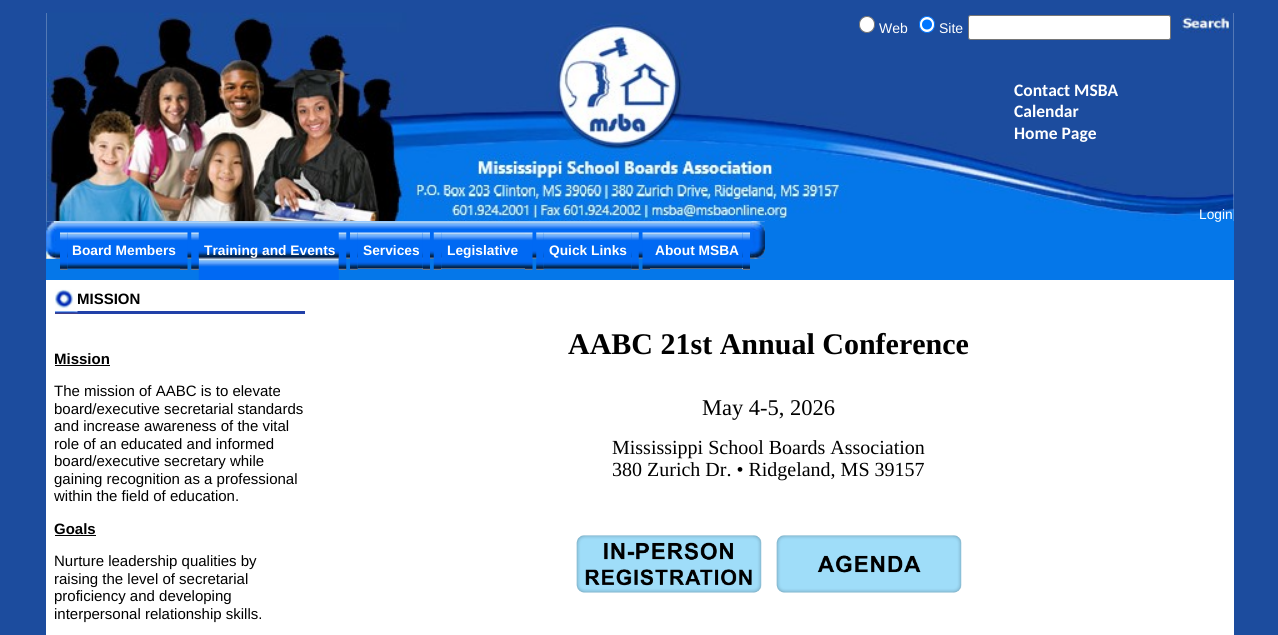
import math
import cairo


def use_color(cr, r, g, b):
  cr.set_source_rgb(r / 255, g / 255, b / 255)

def text(cr, x, y, s, family, size, color, bold=False, italic=False):
  cr.select_font_face(family, cairo.FONT_SLANT_ITALIC if italic else cairo.FONT_SLANT_NORMAL, cairo.FONT_WEIGHT_BOLD if bold else cairo.FONT_WEIGHT_NORMAL)
  cr.set_font_size(size)
  use_color(cr, *color)
  cr.move_to(x, y)
  cr.show_text(s)

def box(cr, x, y, w, h, *color):
  use_color(cr, *color)
  cr.rectangle(x, y, w, h)
  cr.fill()

def round_rect(cr, x, y, w, h, r):
  cr.new_sub_path()
  for i, (u, v) in enumerate([(x + w - r, y + h - r), (x + r, y + h - r), (x + r, y + r), (x + w - r, y + r)]):
    cr.arc(u, v, r, i * math.pi / 2, (i + 1) * math.pi / 2)
  cr.close_path()

def picture(cr, path, x, y, w, h):
  cr.save()
  cr.set_source_surface(cairo.ImageSurface.create_from_png(path), x, y)
  cr.rectangle(x, y, w, h)
  cr.fill()
  cr.restore()

def draw(cr):
  use_color(cr, 28, 76, 158)
  cr.paint()
  box(cr, 46, 13, 1188, 622, 255, 255, 255)
  picture(cr, "img_01.png", 46, 12, 1188, 209)
  round_rect(cr, 859.5, 16.5, 15, 16, 7.5)
  cr.fill_preserve()
  use_color(cr, 118, 118, 118)
  cr.set_line_width(1)
  cr.stroke()
  use_color(cr, 255, 255, 255)
  round_rect(cr, 919.5, 16.5, 15, 16, 7.5)
  cr.fill_preserve()
  use_color(cr, 0, 117, 255)
  cr.stroke()
  cr.arc(927, 24.5, 5, 0, 2 * math.pi)
  cr.fill()
  use_color(cr, 255, 255, 255)
  round_rect(cr, 968.5, 15.5, 202, 24, 2)
  cr.fill_preserve()
  use_color(cr, 118, 118, 118)
  cr.stroke()
  picture(cr, "img_02.png", 1180, 14, 50, 19)
  box(cr, 46, 221, 1188, 59, 5, 119, 233)
  picture(cr, "img_03.png", 46, 221, 14, 38)
  picture(cr, "img_04.png", 46, 221, 14, 38)
  picture(cr, "img_05.png", 60, 221, 692, 38)
  picture(cr, "img_07.png", 67, 232, 113, 37)
  picture(cr, "img_06.png", 60, 232, 8, 38)
  picture(cr, "img_08.png", 180, 232, 8, 38)
  picture(cr, "img_10.png", 198, 221, 141, 59)
  picture(cr, "img_09.png", 191, 232, 8, 38)
  picture(cr, "img_11.png", 338, 232, 9, 38)
  box(cr, 358, 268, 65, 1, 255, 255, 255)
  picture(cr, "img_12.png", 357, 232, 66, 37)
  picture(cr, "img_06.png", 350, 232, 8, 38)
  picture(cr, "img_13.png", 422, 232, 8, 38)
  box(cr, 441, 268, 84, 1, 255, 255, 255)
  picture(cr, "img_15.png", 441, 232, 84, 37)
  picture(cr, "img_14.png", 433, 232, 9, 38)
  picture(cr, "img_08.png", 525, 232, 8, 38)
  picture(cr, "img_16.png", 536, 232, 8, 38)
  picture(cr, "img_16.png", 631, 232, 8, 38)
  picture(cr, "img_17.png", 543, 232, 89, 37)
  picture(cr, "img_18.png", 642, 232, 8, 38)
  picture(cr, "img_18.png", 742, 232, 8, 38)
  box(cr, 650, 268, 93, 1, 255, 255, 255)
  picture(cr, "img_19.png", 650, 232, 93, 37)
  picture(cr, "img_20.png", 751, 221, 14, 38)
  picture(cr, "img_21.png", 751, 221, 14, 38)
  box(cr, 77, 311, 228, 3, 33, 64, 168)
  picture(cr, "img_22.png", 55, 289, 23, 25)
  box(cr, 55, 365, 55, 1, 0, 0, 0)
  box(cr, 55, 535, 41, 1, 0, 0, 0)
  picture(cr, "img_23.png", 576, 535, 186, 58)
  picture(cr, "img_24.png", 776, 535, 186, 58)
  text(cr, 879, 33, "Web", "Liberation Sans", 14, (255, 255, 255))
  text(cr, 939, 33, "Site", "Liberation Sans", 14, (255, 255, 255))
  text(cr, 1014, 96, "Contact MSBA", "Carlito", 17.5, (255, 255, 255), bold=True)
  text(cr, 1014, 117, "Calendar", "Carlito", 17.5, (255, 255, 255), bold=True)
  text(cr, 1014, 139, "Home Page", "Carlito", 17.5, (255, 255, 255), bold=True)
  text(cr, 1199, 219, "Login", "Liberation Sans", 13.75, (255, 255, 255))
  text(cr, 72, 255, "Board Members", "Liberation Sans", 13.75, (255, 255, 255), bold=True)
  text(cr, 204, 255, "Training and Events", "Liberation Sans", 13.75, (255, 255, 255), bold=True)
  text(cr, 363, 255, "Services", "Liberation Sans", 13.75, (255, 255, 255), bold=True)
  text(cr, 447, 255, "Legislative", "Liberation Sans", 13.75, (255, 255, 255), bold=True)
  text(cr, 549, 255, "Quick Links", "Liberation Sans", 13.75, (255, 255, 255), bold=True)
  text(cr, 655, 255, "About MSBA", "Liberation Sans", 13.75, (255, 255, 255), bold=True)
  text(cr, 77, 304, "MISSION", "Liberation Sans", 15, (0, 0, 0), bold=True)
  text(cr, 54, 364, "Mission", "Liberation Sans", 15, (0, 0, 0), bold=True)
  text(cr, 54, 396, "The mission of AABC is to elevate", "Liberation Sans", 15, (0, 0, 0))
  text(cr, 54, 414, "board/executive secretarial standards", "Liberation Sans", 15, (0, 0, 0))
  text(cr, 54, 431, "and increase awareness of the vital", "Liberation Sans", 15, (0, 0, 0))
  text(cr, 54, 449, "role of an educated and informed", "Liberation Sans", 15, (0, 0, 0))
  text(cr, 54, 466, "board/executive secretary while", "Liberation Sans", 15, (0, 0, 0))
  text(cr, 54, 484, "gaining recognition as a professional", "Liberation Sans", 15, (0, 0, 0))
  text(cr, 54, 501, "within the field of education.", "Liberation Sans", 15, (0, 0, 0))
  text(cr, 54, 534, "Goals", "Liberation Sans", 15, (0, 0, 0), bold=True)
  text(cr, 54, 566, "Nurture leadership qualities by", "Liberation Sans", 15, (0, 0, 0))
  text(cr, 54, 584, "raising the level of secretarial", "Liberation Sans", 15, (0, 0, 0))
  text(cr, 54, 601, "proficiency and developing", "Liberation Sans", 15, (0, 0, 0))
  text(cr, 54, 619, "interpersonal relationship skills.", "Liberation Sans", 15, (0, 0, 0))
  text(cr, 568, 354, "AABC 21st Annual Conference", "Liberation Serif", 30, (0, 0, 0), bold=True)
  text(cr, 702, 415, "May 4-5, 2026", "Liberation Serif", 22.5, (0, 0, 0))
  text(cr, 612, 454, "Mississippi School Boards Association", "Liberation Serif", 20, (0, 0, 0))
  text(cr, 612, 476, "380 Zurich Dr. • Ridgeland, MS 39157", "Liberation Serif", 20, (0, 0, 0))


surface = cairo.ImageSurface(cairo.FORMAT_RGB24, 1278, 635)
cr = cairo.Context(surface)
options = cairo.FontOptions()
options.set_hint_metrics(cairo.HINT_METRICS_OFF)
options.set_hint_style(cairo.HINT_STYLE_NONE)
cr.set_font_options(options)
cr.set_miter_limit(4)
draw(cr)
surface.write_to_png("out.png")
